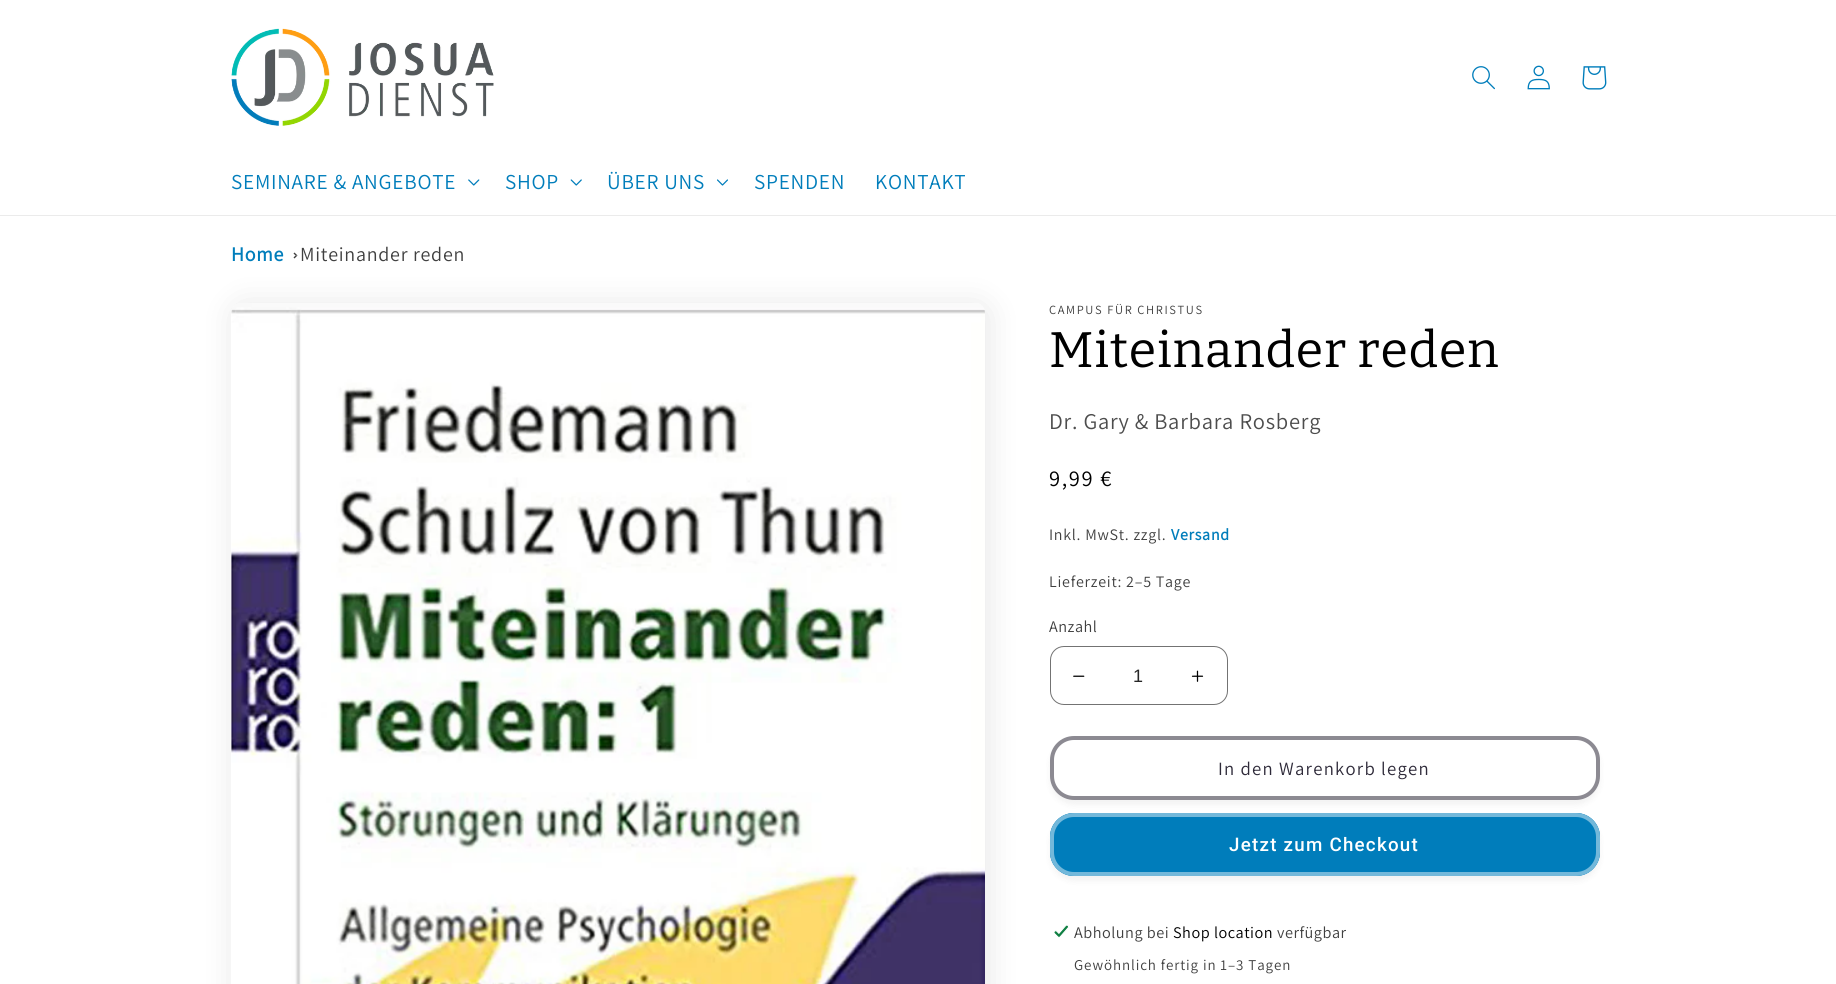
import math
import cairo


def use_color(cr, r, g, b):
  cr.set_source_rgb(r / 255, g / 255, b / 255)

def text(cr, x, y, s, family, size, color, bold=False, italic=False):
  cr.select_font_face(family, cairo.FONT_SLANT_ITALIC if italic else cairo.FONT_SLANT_NORMAL, cairo.FONT_WEIGHT_BOLD if bold else cairo.FONT_WEIGHT_NORMAL)
  cr.set_font_size(size)
  use_color(cr, *color)
  cr.move_to(x, y)
  cr.show_text(s)

def spaced_text(cr, x, y, s, letter, word):
  cr.move_to(x, y)
  for ch in s:
    cr.show_text(ch)
    cr.rel_move_to(letter + word * (ch == ' '), 0)

def box(cr, x, y, w, h, *color):
  use_color(cr, *color)
  cr.rectangle(x, y, w, h)
  cr.fill()

def round_rect(cr, x, y, w, h, r):
  cr.new_sub_path()
  for i, (u, v) in enumerate([(x + w - r, y + h - r), (x + r, y + h - r), (x + r, y + r), (x + w - r, y + r)]):
    cr.arc(u, v, r, i * math.pi / 2, (i + 1) * math.pi / 2)
  cr.close_path()

def shadow(cr, x, y, w, h, r, blur, alpha):
  cr.push_group_with_content(cairo.CONTENT_ALPHA)
  cr.set_operator(cairo.OPERATOR_SOURCE)
  for i in range(15, -16, -2):
    e = blur * i / 6
    if min(w, h) + 2 * e > 0:
      cr.set_source_rgba(0, 0, 0, alpha * math.erfc((i - 1) / 8.5) / 2)
      round_rect(cr, x - e, y - e, w + 2 * e, h + 2 * e, max(0, min(r + e + blur * .6, min(w, h) / 2 + e)))
      cr.fill()
  cr.mask(cr.pop_group())

def picture(cr, path, x, y, w, h):
  cr.save()
  cr.set_source_surface(cairo.ImageSurface.create_from_png(path), x, y)
  cr.rectangle(x, y, w, h)
  cr.fill()
  cr.restore()

def draw(cr):
  use_color(cr, 255, 255, 255)
  cr.paint()
  box(cr, 0, 215, 1836, 1, 235, 235, 235)
  picture(cr, "img_01.png", 231, 28, 263, 98)
  picture(cr, "img_02.png", 1472, 66, 23, 24)
  picture(cr, "img_03.png", 1527, 65, 23, 25)
  picture(cr, "img_04.png", 1582, 66, 25, 24)
  picture(cr, "img_05.png", 468, 179, 12, 7)
  picture(cr, "img_06.png", 570, 179, 12, 7)
  picture(cr, "img_07.png", 717, 179, 11, 7)
  use_color(cr, 64, 64, 64)
  cr.new_path()
  cr.move_to(294.5, 252.5)
  cr.line_to(297.5, 255.5)
  cr.line_to(295.5, 255.5)
  cr.line_to(293.5, 253.5)
  cr.close_path()
  cr.fill()
  use_color(cr, 0, 0, 0)
  shadow(cr, 234, 305, 754, 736, 10, 15.5, 0.1)
  use_color(cr, 64, 64, 64)
  cr.new_path()
  cr.move_to(297.5, 255.5)
  cr.line_to(294.5, 258.5)
  cr.line_to(293.5, 257.5)
  cr.line_to(295.5, 255.5)
  cr.close_path()
  cr.fill()
  use_color(cr, 255, 255, 255)
  round_rect(cr, 231, 303, 754, 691, 10)
  cr.fill()
  picture(cr, "img_08.png", 231, 303, 754, 681)
  picture(cr, "img_09.png", 1073, 675, 12, 2)
  picture(cr, "img_10.png", 1191, 670, 13, 12)
  round_rect(cr, 1050.5, 646.5, 177, 58, 13.5)
  use_color(cr, 115, 115, 115)
  cr.set_line_width(1)
  cr.stroke()
  use_color(cr, 0, 0, 0)
  shadow(cr, 1050, 741, 550, 64, 24, 3, 0.05)
  use_color(cr, 255, 255, 255)
  round_rect(cr, 1050, 736, 550, 64, 24)
  cr.fill()
  round_rect(cr, 1052, 738, 546, 60, 22)
  cr.set_line_width(4)
  cr.stroke()
  round_rect(cr, 1052, 738, 546, 60, 22)
  use_color(cr, 140, 138, 146)
  cr.stroke()
  use_color(cr, 0, 0, 0)
  shadow(cr, 1050, 818, 550, 63, 24, 3, 0.05)
  use_color(cr, 0, 125, 187)
  round_rect(cr, 1050, 813, 550, 63, 24)
  cr.fill()
  round_rect(cr, 1052, 815, 546, 59, 22)
  cr.stroke()
  round_rect(cr, 1052, 815, 546, 59, 22)
  cr.set_source_rgba(1, 1, 1, 0.45)
  cr.stroke()
  picture(cr, "img_11.png", 1054, 925, 15, 13)
  cr.select_font_face("Assistant")
  cr.set_font_size(21.25)
  use_color(cr, 0, 125, 187)
  spaced_text(cr, 231, 189, "SEMINARE & ANGEBOTE", 0.75, 0)
  spaced_text(cr, 505, 189, "SHOP", 0.75, 0)
  spaced_text(cr, 607, 189, "ÜBER UNS", 0.75, 0)
  spaced_text(cr, 754, 189, "SPENDEN", 0.75, 0)
  spaced_text(cr, 875, 189, "KONTAKT", 0.75, 0)
  cr.select_font_face("Assistant", cairo.FONT_SLANT_NORMAL, cairo.FONT_WEIGHT_BOLD)
  cr.set_font_size(20)
  spaced_text(cr, 231, 261, "Home", 0.75, 0)
  cr.select_font_face("Assistant")
  use_color(cr, 64, 64, 64)
  spaced_text(cr, 300, 261, "Miteinander reden", 0.75, 0)
  cr.set_font_size(12.5)
  spaced_text(cr, 1049, 314, "CAMPUS FÜR CHRISTUS", 1.6, 0)
  cr.select_font_face("Bitter")
  cr.set_font_size(50)
  use_color(cr, 0, 0, 0)
  spaced_text(cr, 1049, 367, "Miteinander reden", 0.75, 0)
  cr.select_font_face("Assistant")
  cr.set_font_size(22.5)
  use_color(cr, 77, 77, 77)
  spaced_text(cr, 1049, 429, "Dr. Gary & Barbara Rosberg", 0.75, 0)
  use_color(cr, 0, 0, 0)
  spaced_text(cr, 1049, 486, "9,99 €", 1.6, 0)
  cr.set_font_size(16)
  use_color(cr, 64, 64, 64)
  spaced_text(cr, 1049, 540, "Inkl. MwSt. zzgl.", 0.75, 0)
  cr.select_font_face("Assistant", cairo.FONT_SLANT_NORMAL, cairo.FONT_WEIGHT_BOLD)
  use_color(cr, 0, 125, 187)
  spaced_text(cr, 1171, 540, "Versand", 0.75, 0)
  cr.select_font_face("Assistant")
  use_color(cr, 64, 64, 64)
  spaced_text(cr, 1049, 587, "Lieferzeit: 2–5 Tage", 0.75, 0)
  cr.set_font_size(16.25)
  spaced_text(cr, 1049, 632, "Anzahl", 0.5, 0)
  text(cr, 1133, 682, "1", "Liberation Sans", 18, (38, 38, 38))
  cr.select_font_face("Assistant")
  cr.set_font_size(18.75)
  use_color(cr, 46, 42, 57)
  spaced_text(cr, 1218, 775, "In den Warenkorb legen", 1.25, 0)
  cr.select_font_face("Roboto Medium")
  use_color(cr, 255, 255, 255)
  spaced_text(cr, 1229, 851, "Jetzt zum Checkout", 1.25, 0)
  cr.select_font_face("Assistant")
  cr.set_font_size(16.25)
  use_color(cr, 64, 64, 64)
  spaced_text(cr, 1074, 938, "Abholung bei", 0.5, 0)
  use_color(cr, 0, 0, 0)
  spaced_text(cr, 1173, 938, "Shop location", 0.5, 0)
  use_color(cr, 64, 64, 64)
  spaced_text(cr, 1277, 938, "verfügbar", 0.5, 0)
  cr.set_font_size(15)
  spaced_text(cr, 1074, 970, "Gewöhnlich fertig in 1–3 Tagen", 0.9, 0)


surface = cairo.ImageSurface(cairo.FORMAT_RGB24, 1836, 984)
cr = cairo.Context(surface)
options = cairo.FontOptions()
options.set_hint_metrics(cairo.HINT_METRICS_OFF)
options.set_hint_style(cairo.HINT_STYLE_NONE)
cr.set_font_options(options)
cr.set_miter_limit(4)
draw(cr)
surface.write_to_png("out.png")
